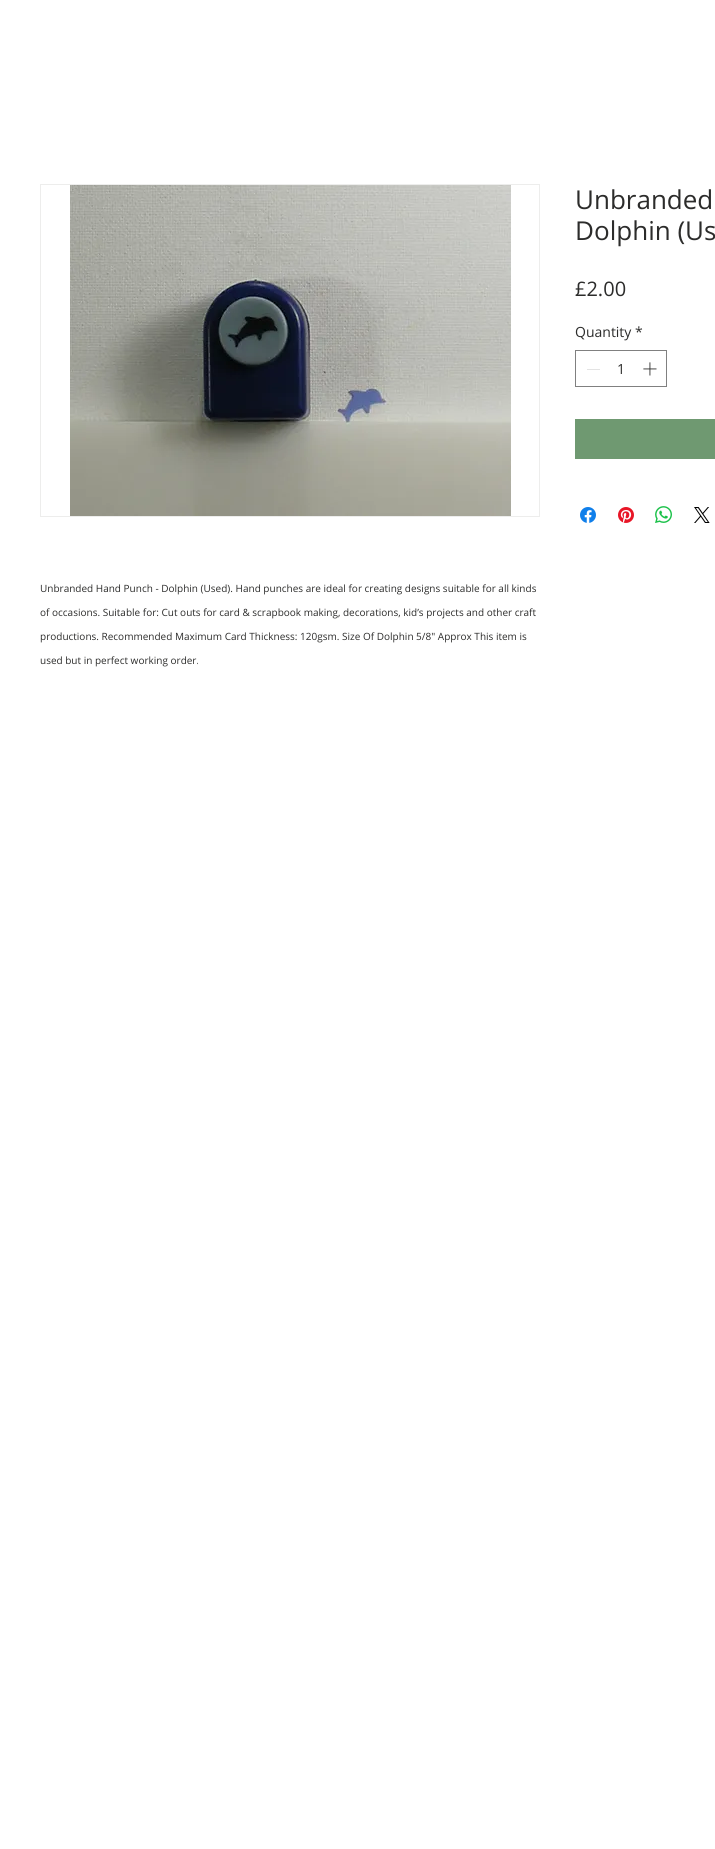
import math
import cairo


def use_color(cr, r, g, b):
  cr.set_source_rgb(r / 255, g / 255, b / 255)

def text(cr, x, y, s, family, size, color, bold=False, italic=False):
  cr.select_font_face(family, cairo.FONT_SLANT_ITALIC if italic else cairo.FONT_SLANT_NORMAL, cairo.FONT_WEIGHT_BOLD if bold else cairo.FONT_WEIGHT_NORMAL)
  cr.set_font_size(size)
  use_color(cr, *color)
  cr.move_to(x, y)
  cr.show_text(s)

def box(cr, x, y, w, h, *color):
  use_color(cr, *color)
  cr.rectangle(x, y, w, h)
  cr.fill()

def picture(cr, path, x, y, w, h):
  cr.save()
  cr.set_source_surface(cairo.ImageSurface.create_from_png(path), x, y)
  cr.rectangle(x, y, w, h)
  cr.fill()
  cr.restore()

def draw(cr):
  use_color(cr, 255, 255, 255)
  cr.paint()
  cr.rectangle(575.5, 350.5, 91, 36)
  use_color(cr, 128, 128, 128)
  cr.set_line_width(1)
  cr.stroke()
  box(cr, 587, 369, 13, 1, 227, 227, 227)
  picture(cr, "img_01.png", 643, 362, 14, 14)
  box(cr, 575, 419, 140, 40, 111, 153, 113)
  picture(cr, "img_02.png", 580, 507, 16, 16)
  picture(cr, "img_03.png", 618, 507, 16, 16)
  picture(cr, "img_04.png", 655, 506, 17, 17)
  picture(cr, "img_05.png", 694, 507, 16, 16)
  cr.rectangle(40.5, 184.5, 499, 332)
  use_color(cr, 237, 237, 236)
  cr.stroke()
  picture(cr, "img_06.png", 70, 185, 441, 331)
  text(cr, 575, 209, "Unbranded", "Open Sans", 26, (44, 44, 43))
  text(cr, 575, 240, "Dolphin (Us", "Open Sans", 26, (44, 44, 43))
  text(cr, 575, 296, "£2.00", "Open Sans", 20, (44, 44, 43))
  text(cr, 575, 337, "Quantity", "Open Sans", 14, (44, 44, 43))
  text(cr, 635, 337, "*", "Open Sans", 14, (44, 44, 43))
  text(cr, 617, 374, "1", "Open Sans", 14, (44, 44, 43))
  text(cr, 40, 592, "Unbranded Hand Punch - Dolphin (Used). Hand punches are ideal for creating designs suitable for all kinds", "Open Sans", 10, (44, 44, 43))
  text(cr, 40, 616, "of occasions. Suitable for: Cut outs for card & scrapbook making, decorations, kid’s projects and other craft", "Open Sans", 10, (44, 44, 43))
  text(cr, 40, 640, "productions. Recommended Maximum Card Thickness: 120gsm. Size Of Dolphin 5/8\" Approx This item is", "Open Sans", 10, (44, 44, 43))
  text(cr, 40, 664, "used but in perfect working order.", "Open Sans", 10, (44, 44, 43))


surface = cairo.ImageSurface(cairo.FORMAT_RGB24, 715, 1849)
cr = cairo.Context(surface)
options = cairo.FontOptions()
options.set_hint_metrics(cairo.HINT_METRICS_OFF)
options.set_hint_style(cairo.HINT_STYLE_NONE)
cr.set_font_options(options)
cr.set_miter_limit(4)
draw(cr)
surface.write_to_png("out.png")
